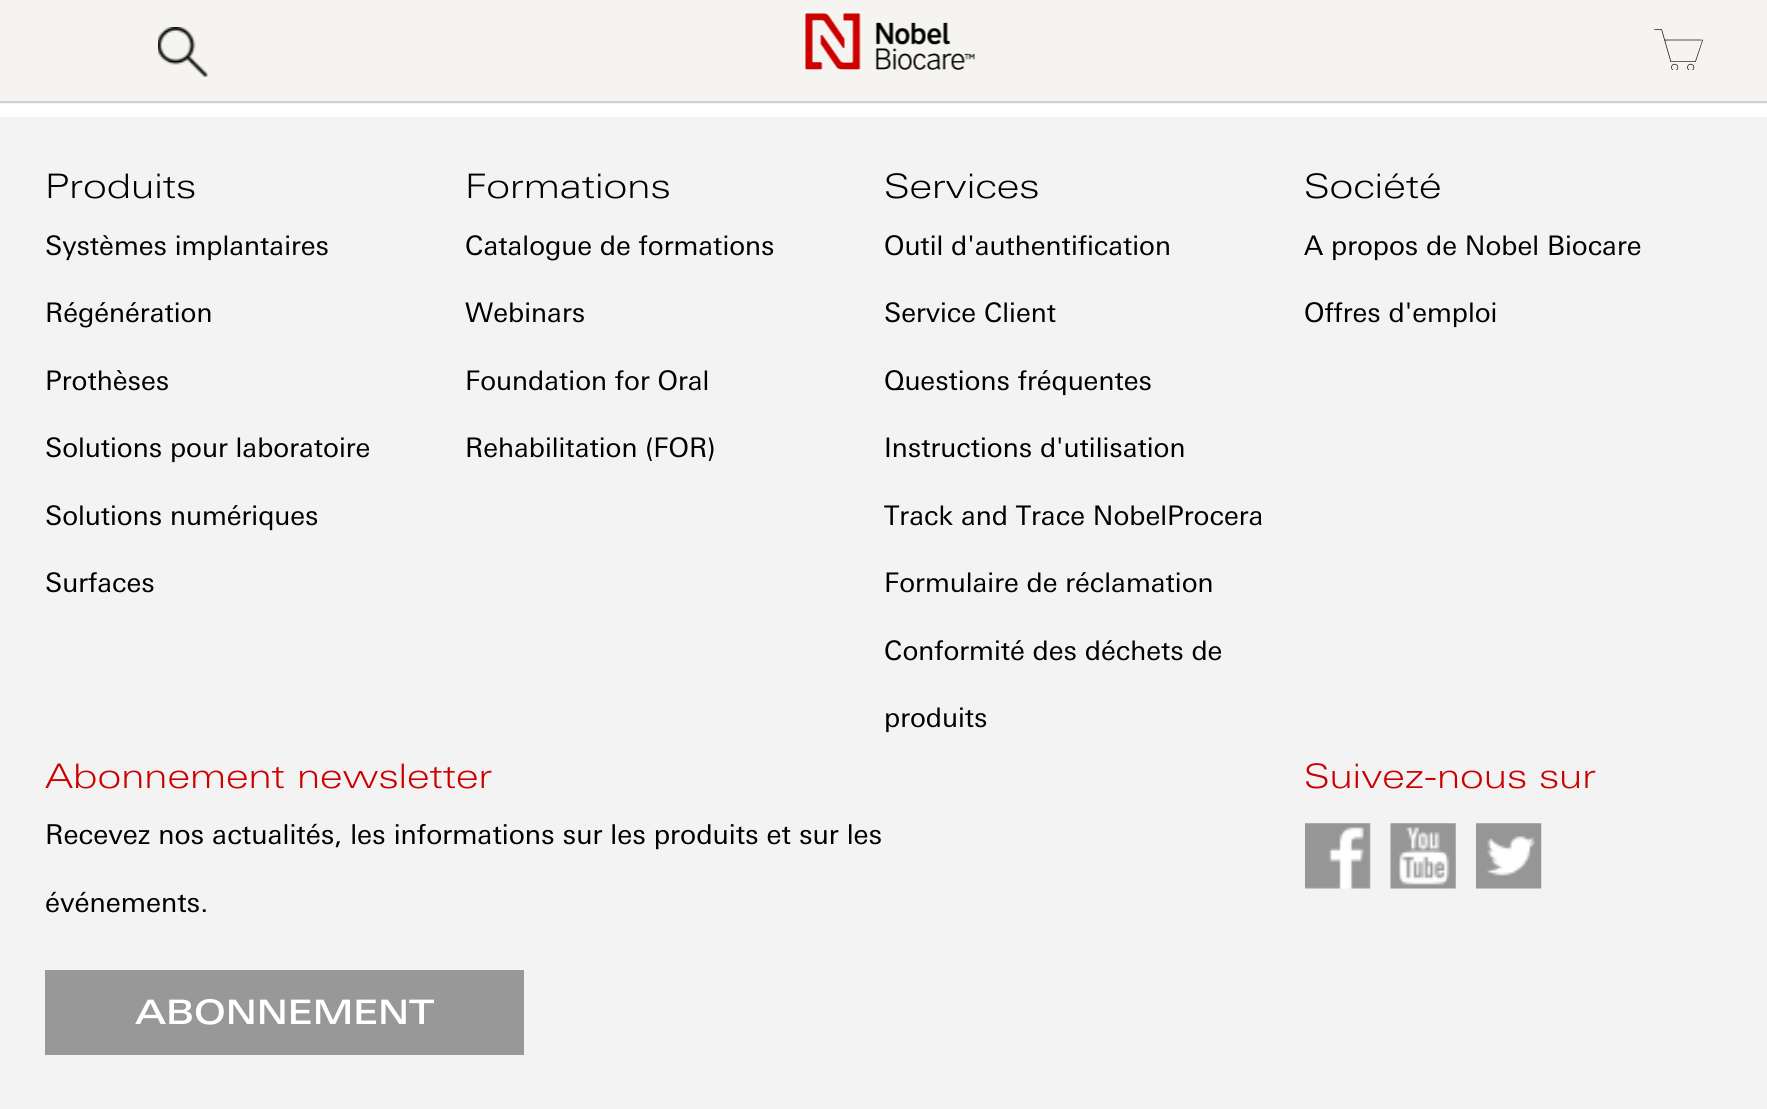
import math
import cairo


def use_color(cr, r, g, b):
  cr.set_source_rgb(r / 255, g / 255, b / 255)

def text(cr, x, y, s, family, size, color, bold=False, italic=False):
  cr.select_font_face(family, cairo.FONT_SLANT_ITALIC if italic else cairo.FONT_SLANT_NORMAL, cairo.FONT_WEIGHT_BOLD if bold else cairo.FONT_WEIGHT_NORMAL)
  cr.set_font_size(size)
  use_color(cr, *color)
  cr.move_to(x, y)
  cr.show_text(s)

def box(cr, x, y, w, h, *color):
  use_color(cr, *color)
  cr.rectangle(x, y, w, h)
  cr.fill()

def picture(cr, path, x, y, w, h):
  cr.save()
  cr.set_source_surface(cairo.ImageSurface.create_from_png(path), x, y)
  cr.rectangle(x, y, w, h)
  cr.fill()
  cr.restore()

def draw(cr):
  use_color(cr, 255, 255, 255)
  cr.paint()
  box(cr, 0, 0, 1767, 104, 245, 244, 241)
  box(cr, 0, 101, 1767, 2, 209, 209, 209)
  picture(cr, "img_01.png", 158, 27, 50, 50)
  picture(cr, "img_02.png", 805, 13, 170, 57)
  picture(cr, "img_03.png", 1654, 29, 49, 41)
  box(cr, 0, 117, 1767, 992, 243, 243, 243)
  box(cr, 45, 970, 479, 85, 152, 152, 152)
  picture(cr, "img_04.png", 1305, 823, 66, 66)
  picture(cr, "img_05.png", 1390, 823, 66, 66)
  picture(cr, "img_06.png", 1476, 823, 66, 66)
  text(cr, 45, 198, "Produits", "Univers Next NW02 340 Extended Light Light", 33.75, (0, 0, 0))
  text(cr, 45, 255, "Systèmes implantaires", "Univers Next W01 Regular", 27, (0, 0, 0))
  text(cr, 45, 322, "Régénération", "Univers Next W01 Regular", 27, (0, 0, 0))
  text(cr, 45, 390, "Prothèses", "Univers Next W01 Regular", 27, (0, 0, 0))
  text(cr, 45, 457, "Solutions pour laboratoire", "Univers Next W01 Regular", 27, (0, 0, 0))
  text(cr, 45, 525, "Solutions numériques", "Univers Next W01 Regular", 27, (0, 0, 0))
  text(cr, 45, 592, "Surfaces", "Univers Next W01 Regular", 27, (0, 0, 0))
  text(cr, 465, 198, "Formations", "Univers Next NW02 340 Extended Light Light", 33.75, (0, 0, 0))
  text(cr, 465, 255, "Catalogue de formations", "Univers Next W01 Regular", 27, (0, 0, 0))
  text(cr, 465, 322, "Webinars", "Univers Next W01 Regular", 27, (0, 0, 0))
  text(cr, 465, 390, "Foundation for Oral", "Univers Next W01 Regular", 27, (0, 0, 0))
  text(cr, 465, 457, "Rehabilitation (FOR)", "Univers Next W01 Regular", 27, (0, 0, 0))
  text(cr, 884, 198, "Services", "Univers Next NW02 340 Extended Light Light", 33.75, (0, 0, 0))
  text(cr, 884, 255, "Outil d'authentification", "Univers Next W01 Regular", 27, (0, 0, 0))
  text(cr, 884, 322, "Service Client", "Univers Next W01 Regular", 27, (0, 0, 0))
  text(cr, 884, 390, "Questions fréquentes", "Univers Next W01 Regular", 27, (0, 0, 0))
  text(cr, 884, 457, "Instructions d'utilisation", "Univers Next W01 Regular", 27, (0, 0, 0))
  text(cr, 884, 525, "Track and Trace NobelProcera", "Univers Next W01 Regular", 27, (0, 0, 0))
  text(cr, 884, 592, "Formulaire de réclamation", "Univers Next W01 Regular", 27, (0, 0, 0))
  text(cr, 884, 660, "Conformité des déchets de", "Univers Next W01 Regular", 27, (0, 0, 0))
  text(cr, 884, 727, "produits", "Univers Next W01 Regular", 27, (0, 0, 0))
  text(cr, 1304, 198, "Société", "Univers Next NW02 340 Extended Light Light", 33.75, (0, 0, 0))
  text(cr, 1304, 255, "A propos de Nobel Biocare", "Univers Next W01 Regular", 27, (0, 0, 0))
  text(cr, 1304, 322, "Offres d'emploi", "Univers Next W01 Regular", 27, (0, 0, 0))
  text(cr, 45, 788, "Abonnement newsletter", "Univers Next NW02 340 Extended Light Light", 33.75, (204, 0, 0))
  text(cr, 45, 844, "Recevez nos actualités, les informations sur les produits et sur les", "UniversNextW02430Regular", 27.4, (0, 0, 0))
  text(cr, 45, 912, "événements.", "UniversNextW02430Regular", 27.4, (0, 0, 0))
  text(cr, 135, 1024, "ABONNEMENT", "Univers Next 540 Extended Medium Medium", 33.75, (255, 255, 255))
  text(cr, 1304, 788, "Suivez-nous sur", "Univers Next NW02 340 Extended Light Light", 33.75, (204, 0, 0))


surface = cairo.ImageSurface(cairo.FORMAT_RGB24, 1767, 1109)
cr = cairo.Context(surface)
options = cairo.FontOptions()
options.set_hint_metrics(cairo.HINT_METRICS_OFF)
options.set_hint_style(cairo.HINT_STYLE_NONE)
cr.set_font_options(options)
cr.set_miter_limit(4)
draw(cr)
surface.write_to_png("out.png")
